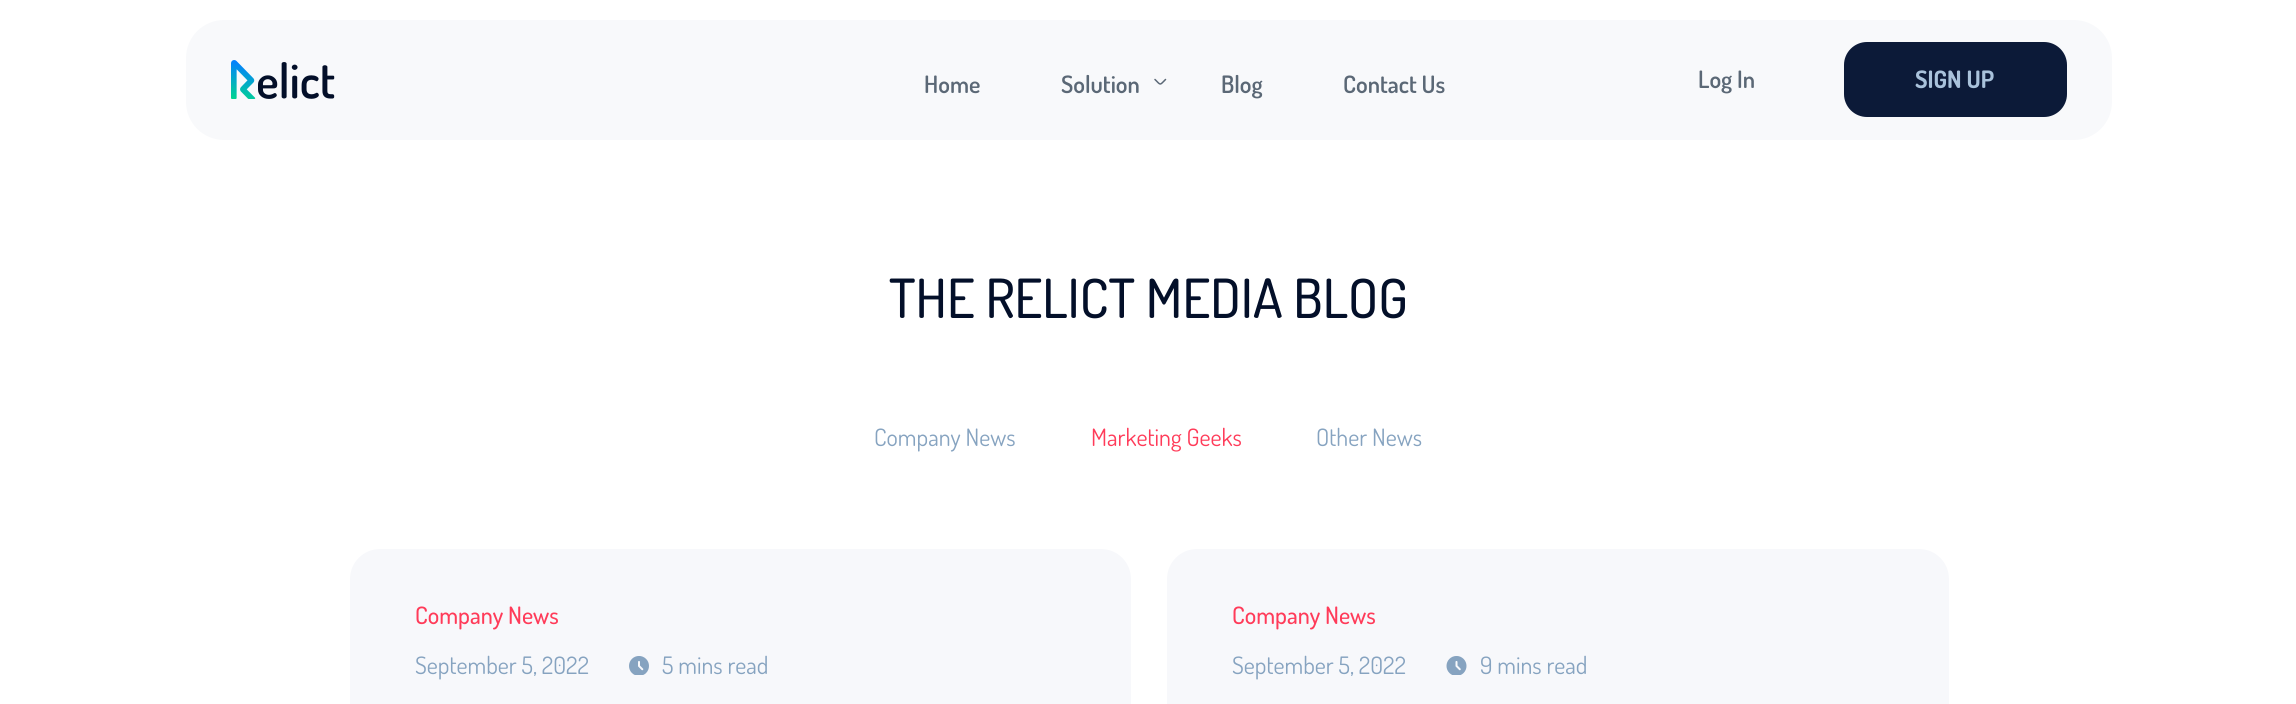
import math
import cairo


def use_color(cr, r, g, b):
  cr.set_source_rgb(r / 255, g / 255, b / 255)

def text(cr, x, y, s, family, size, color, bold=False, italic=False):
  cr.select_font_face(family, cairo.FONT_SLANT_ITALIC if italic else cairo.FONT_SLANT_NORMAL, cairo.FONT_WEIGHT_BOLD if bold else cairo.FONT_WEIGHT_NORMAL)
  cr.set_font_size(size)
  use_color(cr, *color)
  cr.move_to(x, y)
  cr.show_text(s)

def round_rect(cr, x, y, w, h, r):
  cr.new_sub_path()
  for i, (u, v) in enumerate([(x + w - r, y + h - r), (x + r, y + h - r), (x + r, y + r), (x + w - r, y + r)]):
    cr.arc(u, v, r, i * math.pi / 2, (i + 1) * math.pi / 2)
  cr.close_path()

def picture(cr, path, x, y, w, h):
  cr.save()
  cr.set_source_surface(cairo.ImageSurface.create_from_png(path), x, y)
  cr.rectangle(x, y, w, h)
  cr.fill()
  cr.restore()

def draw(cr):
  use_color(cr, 255, 255, 255)
  cr.paint()
  use_color(cr, 248, 249, 251)
  round_rect(cr, 186, 20, 1926, 120, 38)
  cr.fill()
  picture(cr, "img_01.png", 231, 60, 104, 39)
  cr.new_path()
  cr.move_to(1155, 79.5)
  cr.curve_to(1161, 85.5, 1159.5, 85.5, 1165.5, 79.5)
  use_color(cr, 91, 104, 118)
  cr.set_line_width(1.5)
  cr.set_line_cap(cairo.LINE_CAP_ROUND)
  cr.set_line_join(cairo.LINE_JOIN_ROUND)
  cr.stroke()
  use_color(cr, 12, 26, 56)
  round_rect(cr, 1845, 43, 221, 73, 22)
  cr.fill_preserve()
  cr.set_line_width(2)
  cr.set_line_cap(cairo.LINE_CAP_BUTT)
  cr.set_line_join(cairo.LINE_JOIN_MITER)
  cr.stroke()
  use_color(cr, 247, 248, 251)
  round_rect(cr, 350, 549, 781, 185, 30)
  cr.fill()
  picture(cr, "img_02.png", 629, 656, 20, 19)
  round_rect(cr, 1167, 549, 782, 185, 30)
  cr.fill()
  picture(cr, "img_03.png", 1446, 656, 21, 19)
  text(cr, 924, 93, "Home", "Dosis SemiBold", 24, (91, 104, 118))
  text(cr, 1061, 93, "Solution", "Dosis SemiBold", 24, (91, 104, 118))
  text(cr, 1221, 93, "Blog", "Dosis SemiBold", 24, (91, 104, 118))
  text(cr, 1343, 93, "Contact Us", "Dosis SemiBold", 24, (91, 104, 118))
  text(cr, 1698, 88, "Log In", "Dosis SemiBold", 24, (91, 104, 118))
  text(cr, 1915, 88, "SIGN UP", "Dosis", 24, (169, 194, 219), bold=True)
  text(cr, 889, 318, "THE RELICT MEDIA BLOG", "Dosis Medium", 54, (3, 15, 41))
  text(cr, 874, 446, "Company News", "Dosis", 24, (134, 163, 192))
  text(cr, 1091, 446, "Marketing Geeks", "Dosis", 24, (255, 59, 89))
  text(cr, 1316, 446, "Other News", "Dosis", 24, (134, 163, 192))
  text(cr, 415, 624, "Company News", "Dosis Medium", 24, (255, 59, 89))
  text(cr, 415, 674, "September 5, 2022", "Dosis", 24, (134, 163, 192))
  text(cr, 662, 674, "5 mins read", "Dosis", 24, (134, 163, 192))
  text(cr, 1232, 624, "Company News", "Dosis Medium", 24, (255, 59, 89))
  text(cr, 1232, 674, "September 5, 2022", "Dosis", 24, (134, 163, 192))
  text(cr, 1480, 674, "9 mins read", "Dosis", 24, (134, 163, 192))


surface = cairo.ImageSurface(cairo.FORMAT_RGB24, 2296, 704)
cr = cairo.Context(surface)
options = cairo.FontOptions()
options.set_hint_metrics(cairo.HINT_METRICS_OFF)
options.set_hint_style(cairo.HINT_STYLE_NONE)
cr.set_font_options(options)
cr.set_miter_limit(4)
draw(cr)
surface.write_to_png("out.png")
